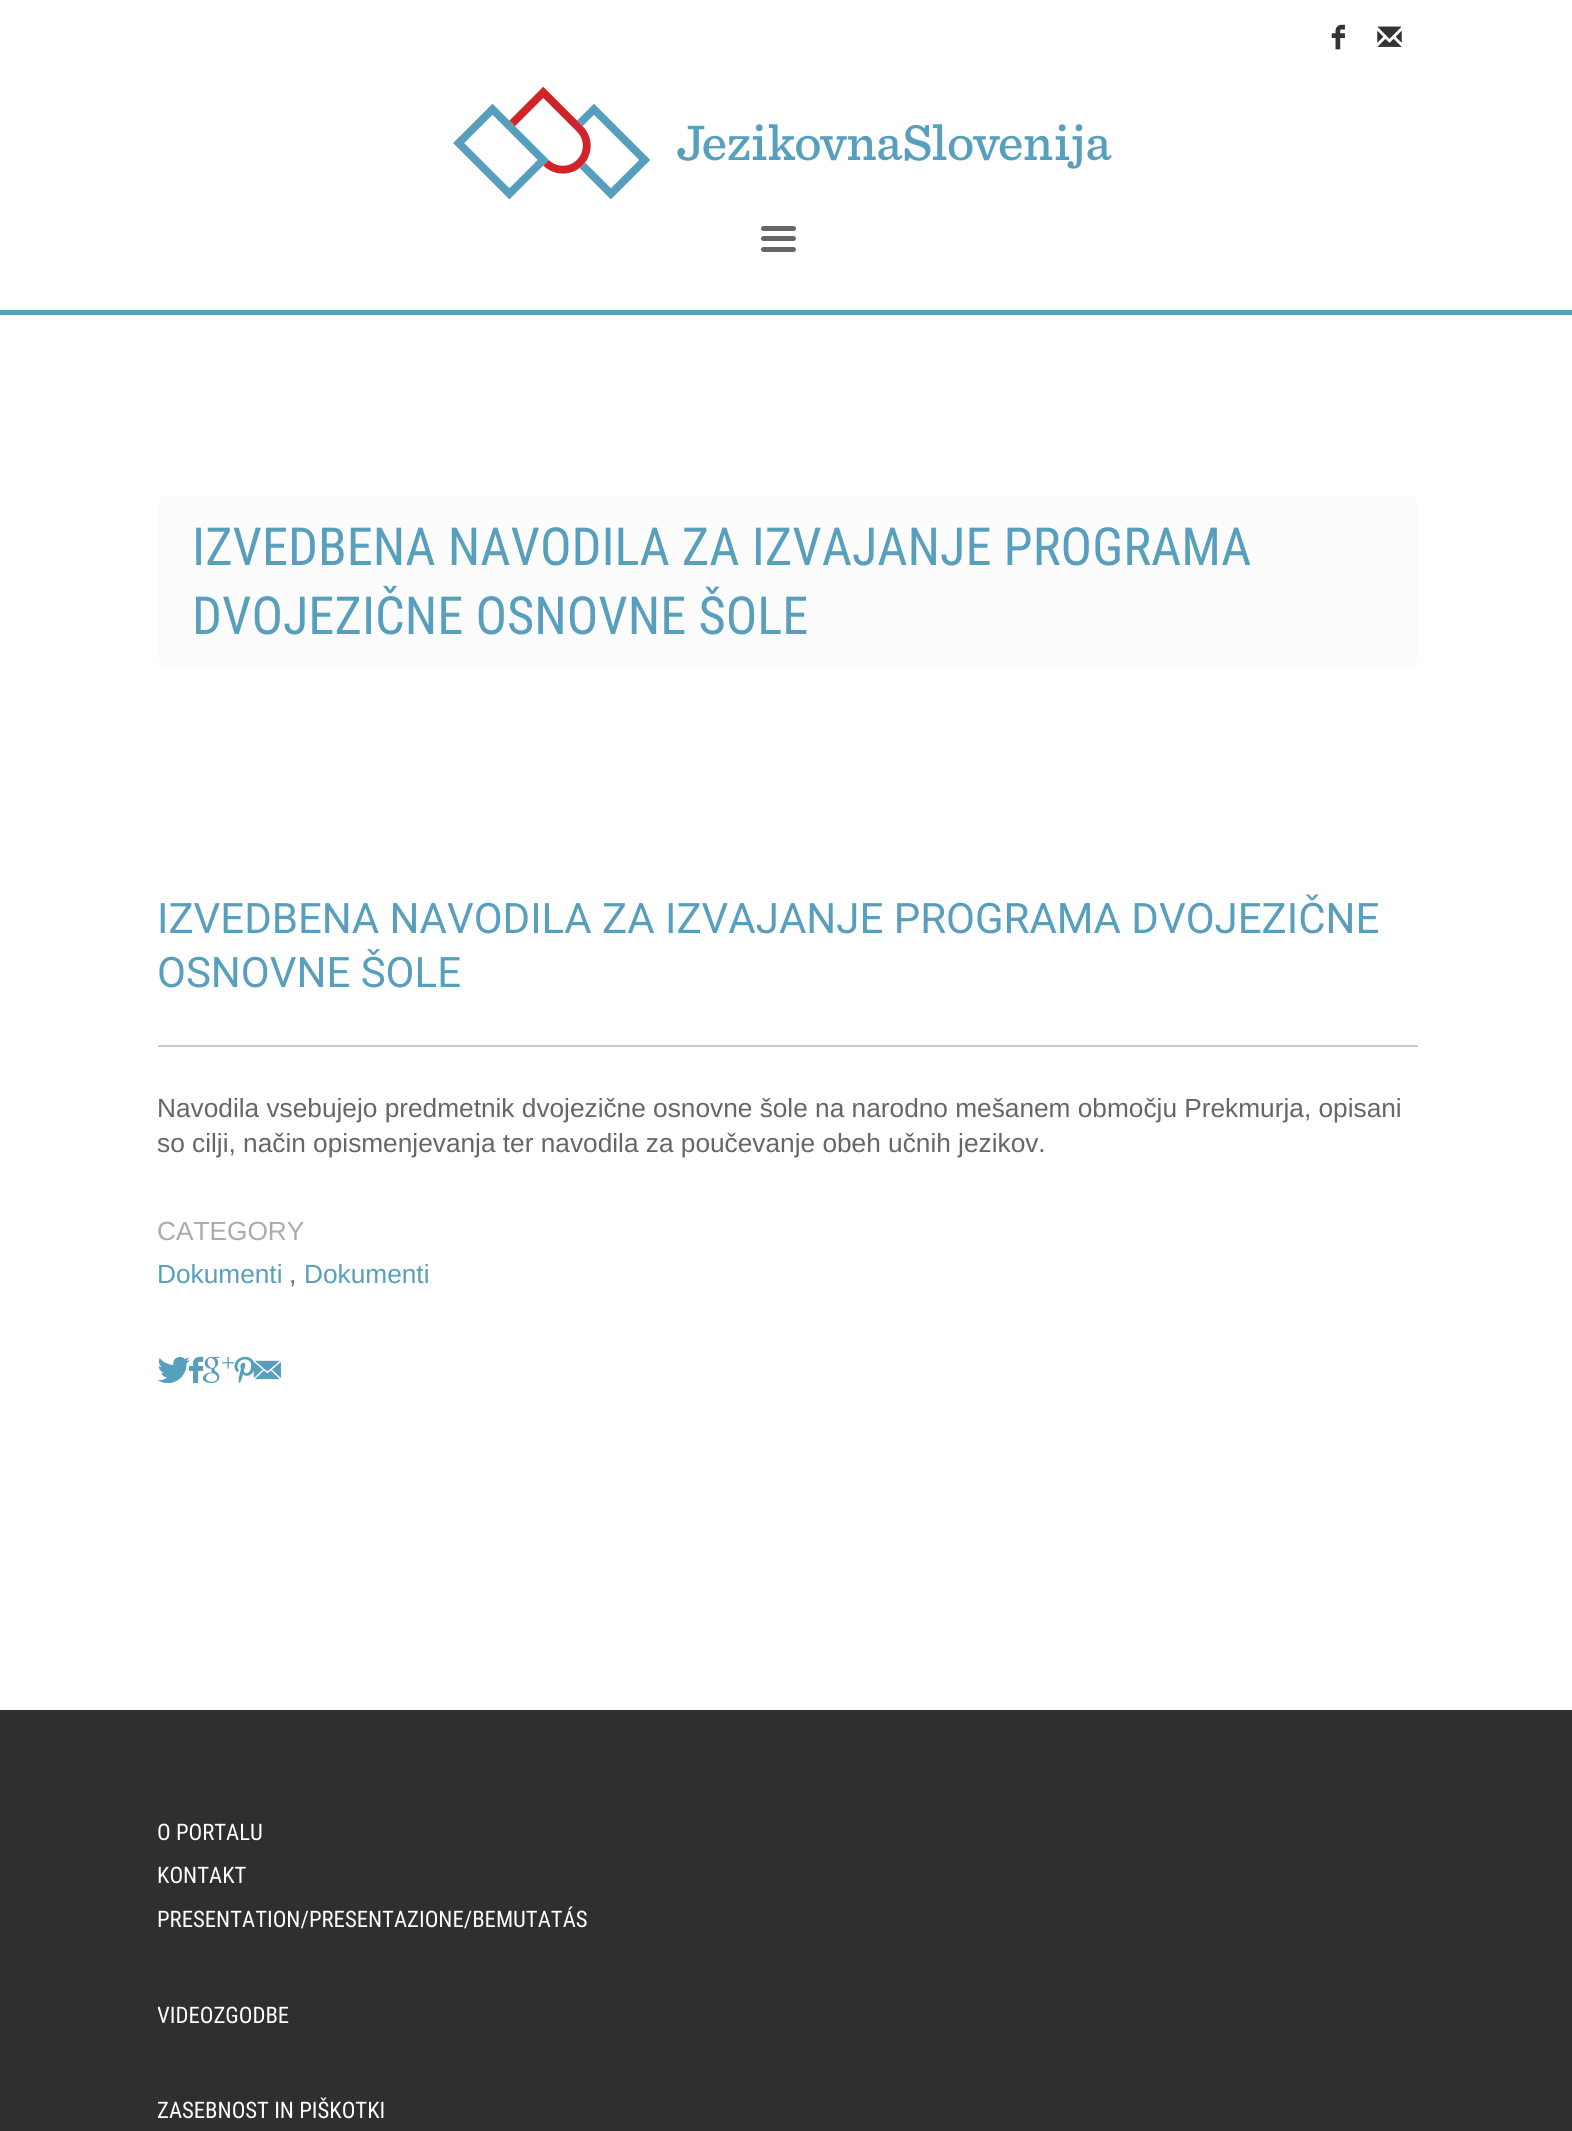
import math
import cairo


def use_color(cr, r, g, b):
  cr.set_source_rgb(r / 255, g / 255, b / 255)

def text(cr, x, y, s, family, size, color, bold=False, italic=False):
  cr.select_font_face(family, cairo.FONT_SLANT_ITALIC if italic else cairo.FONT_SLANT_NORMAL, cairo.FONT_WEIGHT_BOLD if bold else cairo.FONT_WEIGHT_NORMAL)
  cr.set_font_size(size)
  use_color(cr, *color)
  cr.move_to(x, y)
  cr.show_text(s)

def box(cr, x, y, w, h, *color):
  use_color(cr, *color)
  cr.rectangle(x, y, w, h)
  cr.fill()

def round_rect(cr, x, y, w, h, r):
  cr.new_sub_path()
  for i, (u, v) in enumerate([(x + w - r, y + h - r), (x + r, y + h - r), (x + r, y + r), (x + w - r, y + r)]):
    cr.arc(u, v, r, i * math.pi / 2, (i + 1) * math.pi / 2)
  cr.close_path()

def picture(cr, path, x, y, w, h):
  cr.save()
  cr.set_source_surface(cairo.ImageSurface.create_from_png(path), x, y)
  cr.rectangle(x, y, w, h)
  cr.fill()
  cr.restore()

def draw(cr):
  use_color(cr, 255, 255, 255)
  cr.paint()
  box(cr, 0, 310, 1572, 5, 87, 159, 188)
  picture(cr, "img_01.png", 1331, 24, 14, 26)
  picture(cr, "img_02.png", 1377, 26, 25, 21)
  picture(cr, "img_03.png", 453, 86, 659, 114)
  use_color(cr, 102, 102, 102)
  round_rect(cr, 761, 226, 35, 5, 2.5)
  cr.fill()
  round_rect(cr, 761, 236, 35, 5, 2.5)
  cr.fill()
  round_rect(cr, 761, 247, 35, 5, 2.5)
  cr.fill()
  use_color(cr, 252, 252, 252)
  round_rect(cr, 158, 495, 1260, 172, 9)
  cr.fill()
  box(cr, 158, 1045, 1260, 2, 203, 203, 203)
  picture(cr, "img_04.png", 157, 1356, 33, 28)
  picture(cr, "img_05.png", 189, 1356, 15, 28)
  picture(cr, "img_06.png", 203, 1356, 32, 28)
  picture(cr, "img_07.png", 234, 1356, 21, 27)
  picture(cr, "img_08.png", 253, 1360, 28, 20)
  box(cr, 0, 1710, 1572, 421, 47, 47, 47)
  text(cr, 192, 565, "IZVEDBENA NAVODILA ZA IZVAJANJE PROGRAMA", "Roboto Condensed", 52.5, (87, 159, 188))
  text(cr, 192, 634, "DVOJEZIČNE OSNOVNE ŠOLE", "Roboto Condensed", 52.5, (87, 159, 188))
  text(cr, 157, 933, "IZVEDBENA NAVODILA ZA IZVAJANJE PROGRAMA DVOJEZIČNE", "Roboto", 42, (87, 159, 188))
  text(cr, 157, 987, "OSNOVNE ŠOLE", "Roboto", 42, (87, 159, 188))
  text(cr, 157, 1117, "Navodila vsebujejo predmetnik dvojezične osnovne šole na narodno mešanem območju Prekmurja, opisani", "Arimo", 26.25, (102, 102, 102))
  text(cr, 157, 1152, "so cilji, način opismenjevanja ter navodila za poučevanje obeh učnih jezikov.", "Arimo", 26.25, (102, 102, 102))
  text(cr, 157, 1240, "CATEGORY", "Arimo", 26.25, (171, 171, 171))
  text(cr, 157, 1283, "Dokumenti", "Arimo", 26.25, (87, 159, 188))
  text(cr, 289, 1283, ",", "Arimo", 26.25, (102, 102, 102))
  text(cr, 304, 1283, "Dokumenti", "Arimo", 26.25, (87, 159, 188))
  text(cr, 157, 1840, "O PORTALU", "Roboto Condensed", 22.75, (255, 255, 255))
  text(cr, 157, 1883, "KONTAKT", "Roboto Condensed", 22.75, (255, 255, 255))
  text(cr, 157, 1927, "PRESENTATION/PRESENTAZIONE/BEMUTATÁS", "Roboto Condensed", 22.75, (255, 255, 255))
  cr.save()
  cr.rectangle(158, 1999, 1260, 43)
  cr.clip()
  text(cr, 157, 2023, "VIDEOZGODBE", "Roboto Condensed", 22.75, (255, 255, 255))
  cr.restore()
  cr.save()
  cr.rectangle(158, 2095, 1260, 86)
  cr.clip()
  text(cr, 157, 2118, "ZASEBNOST IN PIŠKOTKI", "Roboto Condensed", 22.75, (255, 255, 255))
  cr.restore()


surface = cairo.ImageSurface(cairo.FORMAT_RGB24, 1572, 2131)
cr = cairo.Context(surface)
options = cairo.FontOptions()
options.set_hint_metrics(cairo.HINT_METRICS_OFF)
options.set_hint_style(cairo.HINT_STYLE_NONE)
cr.set_font_options(options)
cr.set_miter_limit(4)
draw(cr)
surface.write_to_png("out.png")
